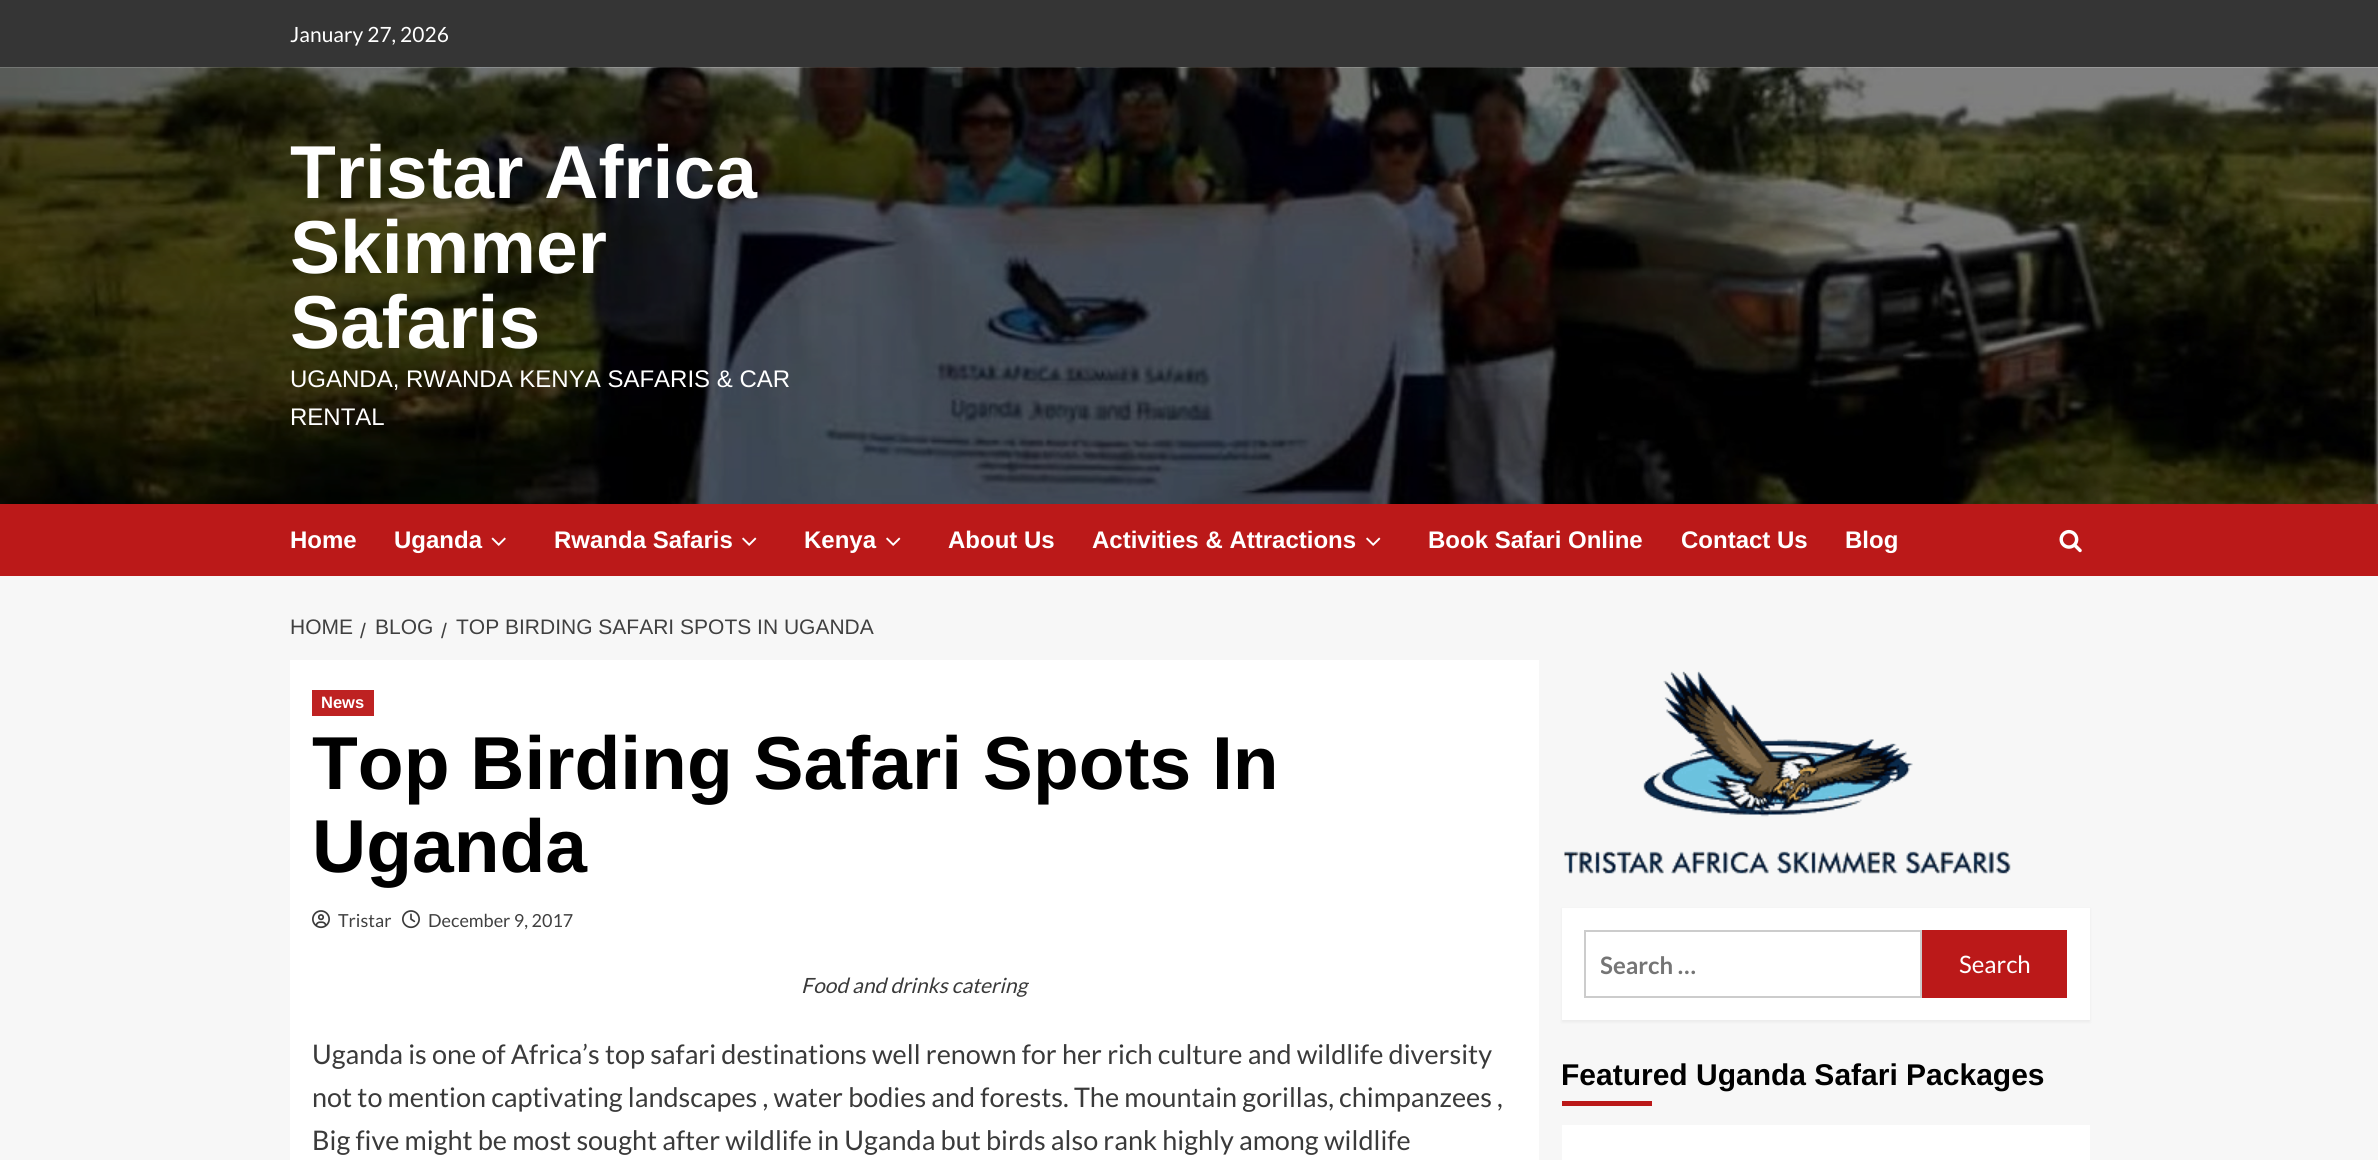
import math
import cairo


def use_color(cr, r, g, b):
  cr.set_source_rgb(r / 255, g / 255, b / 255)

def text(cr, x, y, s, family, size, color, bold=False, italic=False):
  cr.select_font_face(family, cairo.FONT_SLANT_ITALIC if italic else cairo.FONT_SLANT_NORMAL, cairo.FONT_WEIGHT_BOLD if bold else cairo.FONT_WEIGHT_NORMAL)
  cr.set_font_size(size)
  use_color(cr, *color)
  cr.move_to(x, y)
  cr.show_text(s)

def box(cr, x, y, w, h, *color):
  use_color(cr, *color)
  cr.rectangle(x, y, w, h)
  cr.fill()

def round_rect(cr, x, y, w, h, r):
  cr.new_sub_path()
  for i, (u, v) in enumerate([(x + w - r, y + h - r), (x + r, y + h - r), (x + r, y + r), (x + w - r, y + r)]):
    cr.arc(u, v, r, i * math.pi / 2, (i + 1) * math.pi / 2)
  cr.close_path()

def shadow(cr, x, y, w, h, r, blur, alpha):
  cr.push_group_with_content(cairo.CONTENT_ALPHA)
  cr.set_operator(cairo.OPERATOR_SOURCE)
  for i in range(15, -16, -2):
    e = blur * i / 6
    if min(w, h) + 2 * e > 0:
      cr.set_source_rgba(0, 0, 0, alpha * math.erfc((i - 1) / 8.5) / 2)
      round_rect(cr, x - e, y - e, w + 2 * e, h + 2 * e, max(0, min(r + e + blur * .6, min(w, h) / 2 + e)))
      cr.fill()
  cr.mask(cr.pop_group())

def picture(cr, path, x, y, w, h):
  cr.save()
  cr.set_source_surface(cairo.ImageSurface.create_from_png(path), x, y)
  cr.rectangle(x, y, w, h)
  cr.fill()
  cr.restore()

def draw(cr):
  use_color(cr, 247, 247, 247)
  cr.paint()
  box(cr, 0, 0, 2378, 68, 53, 53, 53)
  picture(cr, "img_01.png", 0, 67, 2378, 437)
  box(cr, 0, 504, 2378, 72, 187, 25, 25)
  picture(cr, "img_02.png", 491, 537, 15, 9)
  picture(cr, "img_03.png", 742, 537, 15, 9)
  picture(cr, "img_03.png", 886, 537, 15, 9)
  picture(cr, "img_03.png", 1366, 537, 15, 9)
  picture(cr, "img_04.png", 2059, 529, 23, 24)
  box(cr, 290, 660, 1249, 500, 255, 255, 255)
  box(cr, 312, 690, 62, 26, 190, 34, 34)
  picture(cr, "img_05.png", 312, 910, 18, 19)
  picture(cr, "img_06.png", 402, 910, 18, 19)
  picture(cr, "img_07.png", 1564, 671, 447, 203)
  use_color(cr, 0, 0, 0)
  shadow(cr, 1562, 909, 528, 113, 0, 1.5, 0.05)
  box(cr, 1562, 908, 528, 112, 255, 255, 255)
  cr.rectangle(1585, 931, 336, 66)
  use_color(cr, 204, 204, 204)
  cr.stroke()
  box(cr, 1922, 930, 145, 68, 187, 25, 25)
  box(cr, 1562, 1101, 90, 5, 187, 25, 25)
  box(cr, 1562, 1125, 528, 35, 255, 255, 255)
  text(cr, 290, 42, "January 27, 2026", "Lato", 21, (255, 255, 255))
  text(cr, 290, 198, "Tristar Africa", "Liberation Sans", 75, (255, 255, 255), bold=True)
  text(cr, 290, 273, "Skimmer", "Liberation Sans", 75, (255, 255, 255), bold=True)
  text(cr, 290, 348, "Safaris", "Liberation Sans", 75, (255, 255, 255), bold=True)
  text(cr, 290, 387, "UGANDA, RWANDA KENYA SAFARIS & CAR", "Liberation Sans", 24, (255, 255, 255))
  text(cr, 290, 425, "RENTAL", "Liberation Sans", 24, (255, 255, 255))
  text(cr, 290, 548, "Home", "Liberation Sans", 24, (255, 255, 255), bold=True)
  text(cr, 394, 548, "Uganda", "Liberation Sans", 24, (255, 255, 255), bold=True)
  text(cr, 554, 548, "Rwanda Safaris", "Liberation Sans", 24, (255, 255, 255), bold=True)
  text(cr, 804, 548, "Kenya", "Liberation Sans", 24, (255, 255, 255), bold=True)
  text(cr, 948, 548, "About Us", "Liberation Sans", 24, (255, 255, 255), bold=True)
  text(cr, 1092, 548, "Activities & Attractions", "Liberation Sans", 24, (255, 255, 255), bold=True)
  text(cr, 1428, 548, "Book Safari Online", "Liberation Sans", 24, (255, 255, 255), bold=True)
  text(cr, 1681, 548, "Contact Us", "Liberation Sans", 24, (255, 255, 255), bold=True)
  text(cr, 1845, 548, "Blog", "Liberation Sans", 24, (255, 255, 255), bold=True)
  text(cr, 290, 634, "HOME", "Liberation Sans", 21, (64, 64, 64))
  text(cr, 360, 638, "/", "Liberation Sans", 21, (64, 64, 64))
  text(cr, 375, 634, "BLOG", "Liberation Sans", 21, (64, 64, 64))
  text(cr, 441, 638, "/", "Liberation Sans", 21, (64, 64, 64))
  text(cr, 456, 634, "TOP BIRDING SAFARI SPOTS IN UGANDA", "Liberation Sans", 21, (64, 64, 64))
  text(cr, 321, 708, "News", "Liberation Sans", 16.5, (255, 255, 255), bold=True)
  text(cr, 312, 789, "Top Birding Safari Spots In", "Liberation Sans", 75, (0, 0, 0), bold=True)
  text(cr, 312, 872, "Uganda", "Liberation Sans", 75, (0, 0, 0), bold=True)
  text(cr, 338, 927, "Tristar", "Lato", 18, (64, 64, 64))
  text(cr, 428, 927, "December 9, 2017", "Lato", 18, (64, 64, 64))
  text(cr, 801, 993, "Food and drinks catering", "Lato", 21, (58, 58, 58), italic=True)
  text(cr, 312, 1064, "Uganda is one of Africa’s top safari destinations well renown for her rich culture and wildlife diversity", "Lato", 27, (58, 58, 58))
  text(cr, 312, 1107, "not to mention captivating landscapes , water bodies and forests. The mountain gorillas, chimpanzees ,", "Lato", 27, (58, 58, 58))
  text(cr, 312, 1150, "Big five might be most sought after wildlife in Uganda but birds also rank highly among wildlife", "Lato", 27, (58, 58, 58))
  cr.save()
  cr.rectangle(1601, 950, 298, 28)
  cr.clip()
  text(cr, 1600, 974, "Search …", "Lato", 24, (117, 117, 117), bold=True)
  cr.restore()
  text(cr, 1959, 973, "Search", "Lato", 24, (255, 255, 255))
  text(cr, 1561, 1085, "Featured Uganda Safari Packages", "Liberation Sans", 30, (0, 0, 0), bold=True)


surface = cairo.ImageSurface(cairo.FORMAT_RGB24, 2378, 1160)
cr = cairo.Context(surface)
options = cairo.FontOptions()
options.set_hint_metrics(cairo.HINT_METRICS_OFF)
options.set_hint_style(cairo.HINT_STYLE_NONE)
cr.set_font_options(options)
cr.set_miter_limit(4)
draw(cr)
surface.write_to_png("out.png")
